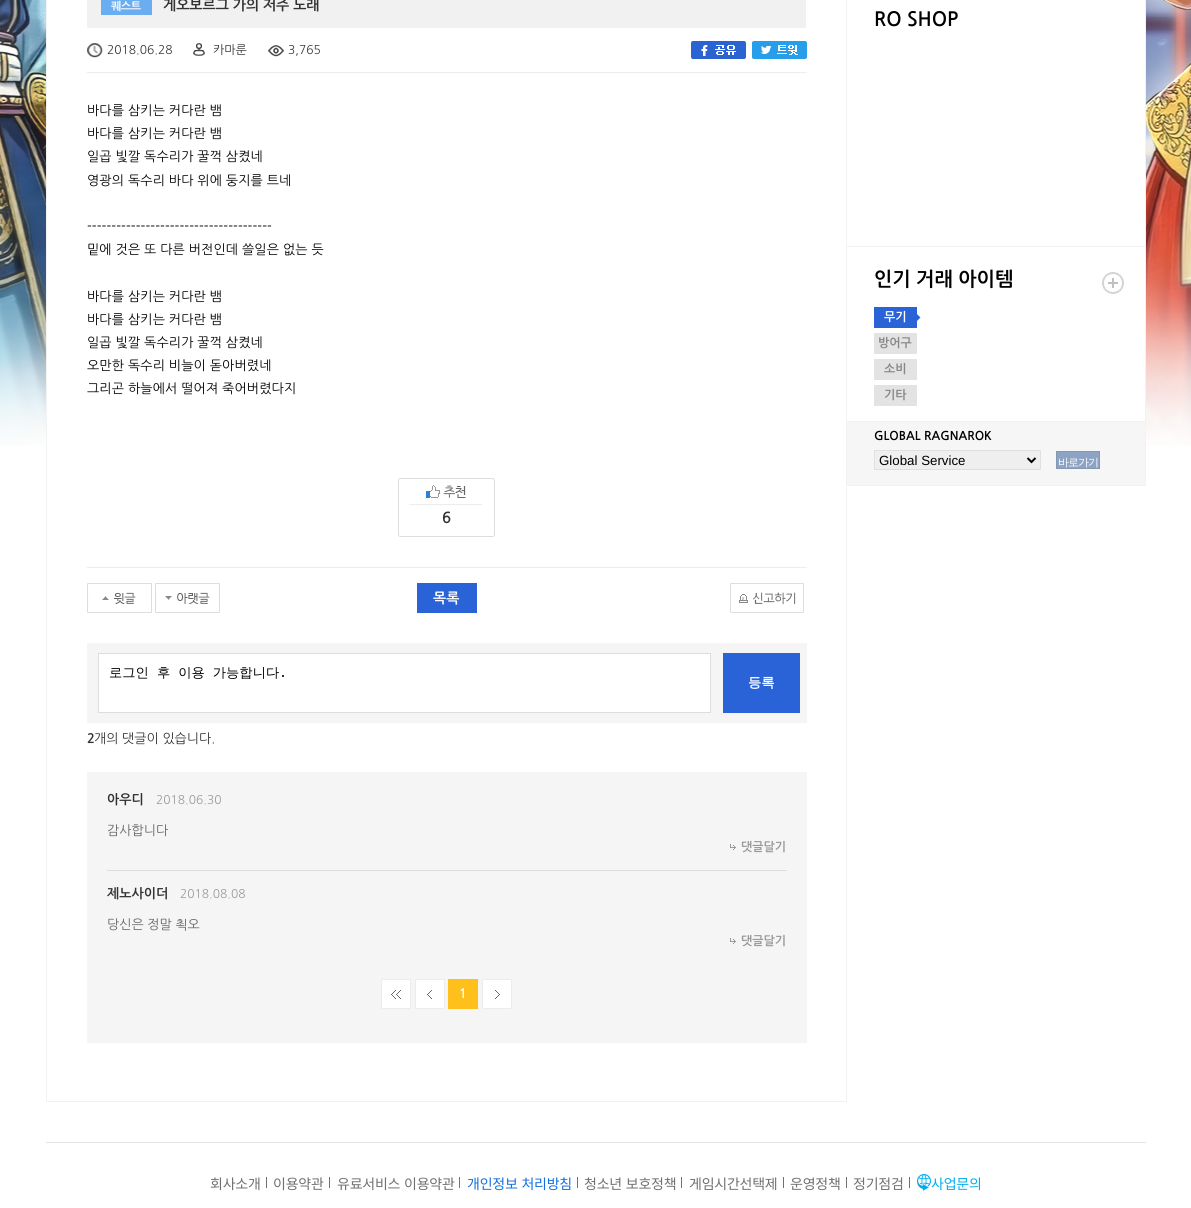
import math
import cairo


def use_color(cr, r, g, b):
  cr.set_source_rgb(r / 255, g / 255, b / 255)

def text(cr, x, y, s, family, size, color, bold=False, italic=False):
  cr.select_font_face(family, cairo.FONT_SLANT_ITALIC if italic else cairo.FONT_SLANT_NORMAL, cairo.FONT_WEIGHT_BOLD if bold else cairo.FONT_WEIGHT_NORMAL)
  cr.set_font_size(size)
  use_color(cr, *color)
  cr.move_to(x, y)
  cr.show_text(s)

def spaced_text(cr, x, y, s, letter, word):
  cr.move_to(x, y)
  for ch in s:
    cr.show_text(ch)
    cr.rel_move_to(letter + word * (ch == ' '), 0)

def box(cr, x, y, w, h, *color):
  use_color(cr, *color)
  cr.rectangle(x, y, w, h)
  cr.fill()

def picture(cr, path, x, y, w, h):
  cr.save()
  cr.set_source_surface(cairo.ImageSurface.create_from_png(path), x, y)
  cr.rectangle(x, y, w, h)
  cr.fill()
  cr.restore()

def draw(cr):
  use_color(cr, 255, 255, 255)
  cr.paint()
  picture(cr, "img_01.png", 0, 0, 1191, 446)
  box(cr, 47, 0, 799, 446, 255, 255, 255)
  box(cr, 1145, 422, 1, 64, 242, 242, 242)
  box(cr, 846, 485, 300, 1, 242, 242, 242)
  cr.rectangle(46.5, -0.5, 800, 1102)
  cr.set_line_width(1)
  cr.stroke()
  box(cr, 87, 0, 719, 28, 241, 241, 241)
  box(cr, 101, 0, 51, 15, 107, 173, 241)
  box(cr, 87, 72, 720, 1, 237, 237, 237)
  picture(cr, "img_02.png", 87, 43, 16, 15)
  picture(cr, "img_03.png", 193, 43, 12, 13)
  picture(cr, "img_04.png", 268, 45, 16, 12)
  picture(cr, "img_05.png", 691, 41, 55, 18)
  picture(cr, "img_06.png", 752, 41, 55, 18)
  box(cr, 87, 567, 720, 1, 237, 237, 237)
  picture(cr, "img_07.png", 398, 478, 97, 59)
  picture(cr, "img_08.png", 87, 583, 65, 30)
  picture(cr, "img_09.png", 155, 583, 65, 30)
  box(cr, 417, 583, 60, 30, 41, 99, 215)
  picture(cr, "img_10.png", 730, 583, 74, 30)
  box(cr, 87, 643, 720, 80, 245, 245, 245)
  use_color(cr, 255, 255, 255)
  cr.rectangle(98.5, 653.5, 612, 59)
  cr.fill_preserve()
  use_color(cr, 221, 221, 222)
  cr.stroke()
  box(cr, 723, 653, 77, 60, 41, 99, 215)
  box(cr, 87, 772, 720, 271, 245, 245, 245)
  picture(cr, "img_11.png", 730, 844, 6, 6)
  box(cr, 107, 870, 680, 1, 221, 221, 221)
  picture(cr, "img_11.png", 730, 938, 6, 6)
  picture(cr, "img_12.png", 381, 979, 30, 30)
  picture(cr, "img_13.png", 415, 979, 30, 30)
  box(cr, 448, 979, 30, 30, 255, 192, 27)
  picture(cr, "img_14.png", 482, 979, 30, 30)
  box(cr, 847, 0, 298, 246, 255, 255, 255)
  box(cr, 1145, 0, 1, 422, 242, 242, 242)
  box(cr, 846, 246, 300, 1, 242, 242, 242)
  box(cr, 847, 247, 298, 174, 255, 255, 255)
  box(cr, 846, 421, 300, 1, 242, 242, 242)
  picture(cr, "img_15.png", 1102, 272, 22, 22)
  picture(cr, "img_16.png", 917, 314, 4, 7)
  box(cr, 874, 307, 43, 21, 41, 99, 215)
  box(cr, 874, 333, 43, 21, 227, 227, 227)
  box(cr, 874, 359, 43, 21, 227, 227, 227)
  box(cr, 874, 385, 43, 21, 227, 227, 227)
  box(cr, 847, 422, 298, 63, 246, 246, 246)
  use_color(cr, 239, 239, 239)
  cr.rectangle(874.5, 450.5, 166, 19)
  cr.fill_preserve()
  use_color(cr, 224, 224, 224)
  cr.stroke()
  cr.new_path()
  cr.move_to(1027.5, 458)
  cr.line_to(1031.5, 462)
  cr.line_to(1035.5, 458)
  use_color(cr, 0, 0, 0)
  cr.set_line_width(2)
  cr.stroke()
  use_color(cr, 141, 163, 195)
  cr.rectangle(1056.5, 451.5, 43, 17)
  cr.fill_preserve()
  use_color(cr, 132, 151, 178)
  cr.set_line_width(1)
  cr.stroke()
  box(cr, 46, 1142, 1100, 1, 229, 229, 229)
  box(cr, 266, 1177, 1, 11, 112, 112, 112)
  box(cr, 329, 1177, 1, 11, 112, 112, 112)
  box(cr, 459, 1177, 1, 11, 112, 112, 112)
  box(cr, 577, 1177, 1, 11, 112, 112, 112)
  box(cr, 681, 1177, 1, 11, 112, 112, 112)
  box(cr, 783, 1177, 1, 11, 112, 112, 112)
  box(cr, 846, 1177, 1, 11, 112, 112, 112)
  box(cr, 909, 1177, 1, 11, 112, 112, 112)
  picture(cr, "img_17.png", 917, 1174, 14, 17)
  cr.select_font_face("NanumGothic", cairo.FONT_SLANT_NORMAL, cairo.FONT_WEIGHT_BOLD)
  cr.set_font_size(11)
  use_color(cr, 255, 255, 255)
  spaced_text(cr, 111, 10, "퀘스트", -0.5, 0)
  text(cr, 163, 10, "게오보르그 가의 저주 노래", "NanumGothic", 14, (51, 51, 51), bold=True)
  text(cr, 107, 54, "2018.06.28", "NanumGothic", 12, (51, 51, 51))
  text(cr, 213, 54, "카마룬", "NanumGothic", 12, (51, 51, 51))
  text(cr, 288, 54, "3,765", "NanumGothic", 12, (51, 51, 51))
  cr.set_font_size(13)
  use_color(cr, 0, 0, 0)
  spaced_text(cr, 87, 115, "바다를 삼키는 커다란 뱀", 0.15, 0)
  spaced_text(cr, 87, 138, "바다를 삼키는 커다란 뱀", 0.15, 0)
  spaced_text(cr, 87, 161, "일곱 빛깔 독수리가 꿀꺽 삼켰네", 0.15, 0)
  spaced_text(cr, 87, 185, "영광의 독수리 바다 위에 둥지를 트네", 0.15, 0)
  spaced_text(cr, 87, 231, "--------------------------------------", 0.15, 0)
  spaced_text(cr, 87, 254, "밑에 것은 또 다른 버전인데 쓸일은 없는 듯", 0.15, 0)
  spaced_text(cr, 87, 301, "바다를 삼키는 커다란 뱀", 0.15, 0)
  spaced_text(cr, 87, 324, "바다를 삼키는 커다란 뱀", 0.15, 0)
  spaced_text(cr, 87, 347, "일곱 빛깔 독수리가 꿀꺽 삼켰네", 0.15, 0)
  spaced_text(cr, 87, 370, "오만한 독수리 비늘이 돋아버렸네", 0.15, 0)
  spaced_text(cr, 87, 393, "그리곤 하늘에서 떨어져 죽어버렸다지", 0.15, 0)
  cr.select_font_face("NanumGothic", cairo.FONT_SLANT_NORMAL, cairo.FONT_WEIGHT_BOLD)
  cr.set_font_size(15)
  use_color(cr, 51, 51, 51)
  spaced_text(cr, 442, 523, "6", -1, 0)
  text(cr, 433, 603, "목록", "NanumGothic", 14, (255, 255, 255), bold=True)
  cr.select_font_face("WenQuanYi Zen Hei Medium")
  cr.set_font_size(13.3)
  use_color(cr, 0, 0, 0)
  spaced_text(cr, 109, 677, "로그인 후 이용 가능합니다", 0, 4)
  text(cr, 279, 677, ".", "DejaVu Sans Mono", 13.3, (0, 0, 0))
  text(cr, 748, 687, "등록", "WenQuanYi Zen Hei", 13.3, (255, 255, 255), bold=True)
  text(cr, 87, 743, "2", "NanumGothic", 13, (51, 51, 51), bold=True)
  text(cr, 94, 743, "개의 댓글이 있습니다.", "NanumGothic", 13, (51, 51, 51))
  text(cr, 107, 804, "아우디", "NanumGothic", 13, (51, 51, 51), bold=True)
  text(cr, 156, 804, "2018.06.30", "NanumGothic", 12, (153, 153, 153))
  text(cr, 107, 835, "감사합니다", "NanumGothic", 13, (102, 102, 102))
  text(cr, 741, 851, "댓글달기", "NanumGothic", 12, (153, 153, 153), bold=True)
  text(cr, 107, 898, "제노사이더", "NanumGothic", 13, (51, 51, 51), bold=True)
  text(cr, 180, 898, "2018.08.08", "NanumGothic", 12, (153, 153, 153))
  text(cr, 107, 929, "당신은 정말 쵝오", "NanumGothic", 13, (102, 102, 102))
  text(cr, 741, 945, "댓글달기", "NanumGothic", 12, (153, 153, 153), bold=True)
  text(cr, 459, 998, "1", "NanumGothic", 13, (255, 255, 255), bold=True)
  text(cr, 874, 26, "RO SHOP", "NanumGothic", 19.5, (0, 0, 0), bold=True)
  text(cr, 874, 286, "인기 거래 아이템", "NanumGothic", 19.5, (0, 0, 0), bold=True)
  text(cr, 884, 321, "무기", "NanumGothic", 12, (255, 255, 255), bold=True)
  text(cr, 878, 347, "방어구", "NanumGothic", 12, (136, 136, 136), bold=True)
  text(cr, 884, 373, "소비", "NanumGothic", 12, (136, 136, 136), bold=True)
  text(cr, 884, 399, "기타", "NanumGothic", 12, (136, 136, 136), bold=True)
  text(cr, 874, 440, "GLOBAL RAGNAROK", "NanumGothic", 12, (0, 0, 0), bold=True)
  text(cr, 879, 465, "Global Service", "Liberation Sans", 13.3, (0, 0, 0))
  cr.select_font_face("WenQuanYi Zen Hei Medium")
  cr.set_font_size(11)
  use_color(cr, 255, 255, 255)
  spaced_text(cr, 1058, 466, "바로가기", -1, 0)
  cr.select_font_face("Noto Sans KR")
  cr.set_font_size(14)
  use_color(cr, 112, 112, 112)
  spaced_text(cr, 210, 1189, "회사소개", -0.25, 0)
  spaced_text(cr, 273, 1189, "이용약관", -0.25, 0)
  spaced_text(cr, 337, 1189, "유료서비스 이용약관", -0.25, 1)
  use_color(cr, 20, 112, 225)
  spaced_text(cr, 467, 1189, "개인정보 처리방침", -0.25, 1)
  use_color(cr, 112, 112, 112)
  spaced_text(cr, 584, 1189, "청소년 보호정책", -0.25, 1)
  spaced_text(cr, 689, 1189, "게임시간선택제", -0.25, 0)
  spaced_text(cr, 790, 1189, "운영정책", -0.25, 0)
  spaced_text(cr, 853, 1189, "정기점검", -0.25, 0)
  use_color(cr, 0, 174, 239)
  spaced_text(cr, 931, 1189, "사업문의", -0.25, 0)


surface = cairo.ImageSurface(cairo.FORMAT_RGB24, 1191, 1208)
cr = cairo.Context(surface)
options = cairo.FontOptions()
options.set_hint_metrics(cairo.HINT_METRICS_OFF)
options.set_hint_style(cairo.HINT_STYLE_NONE)
cr.set_font_options(options)
cr.set_miter_limit(4)
draw(cr)
surface.write_to_png("out.png")
